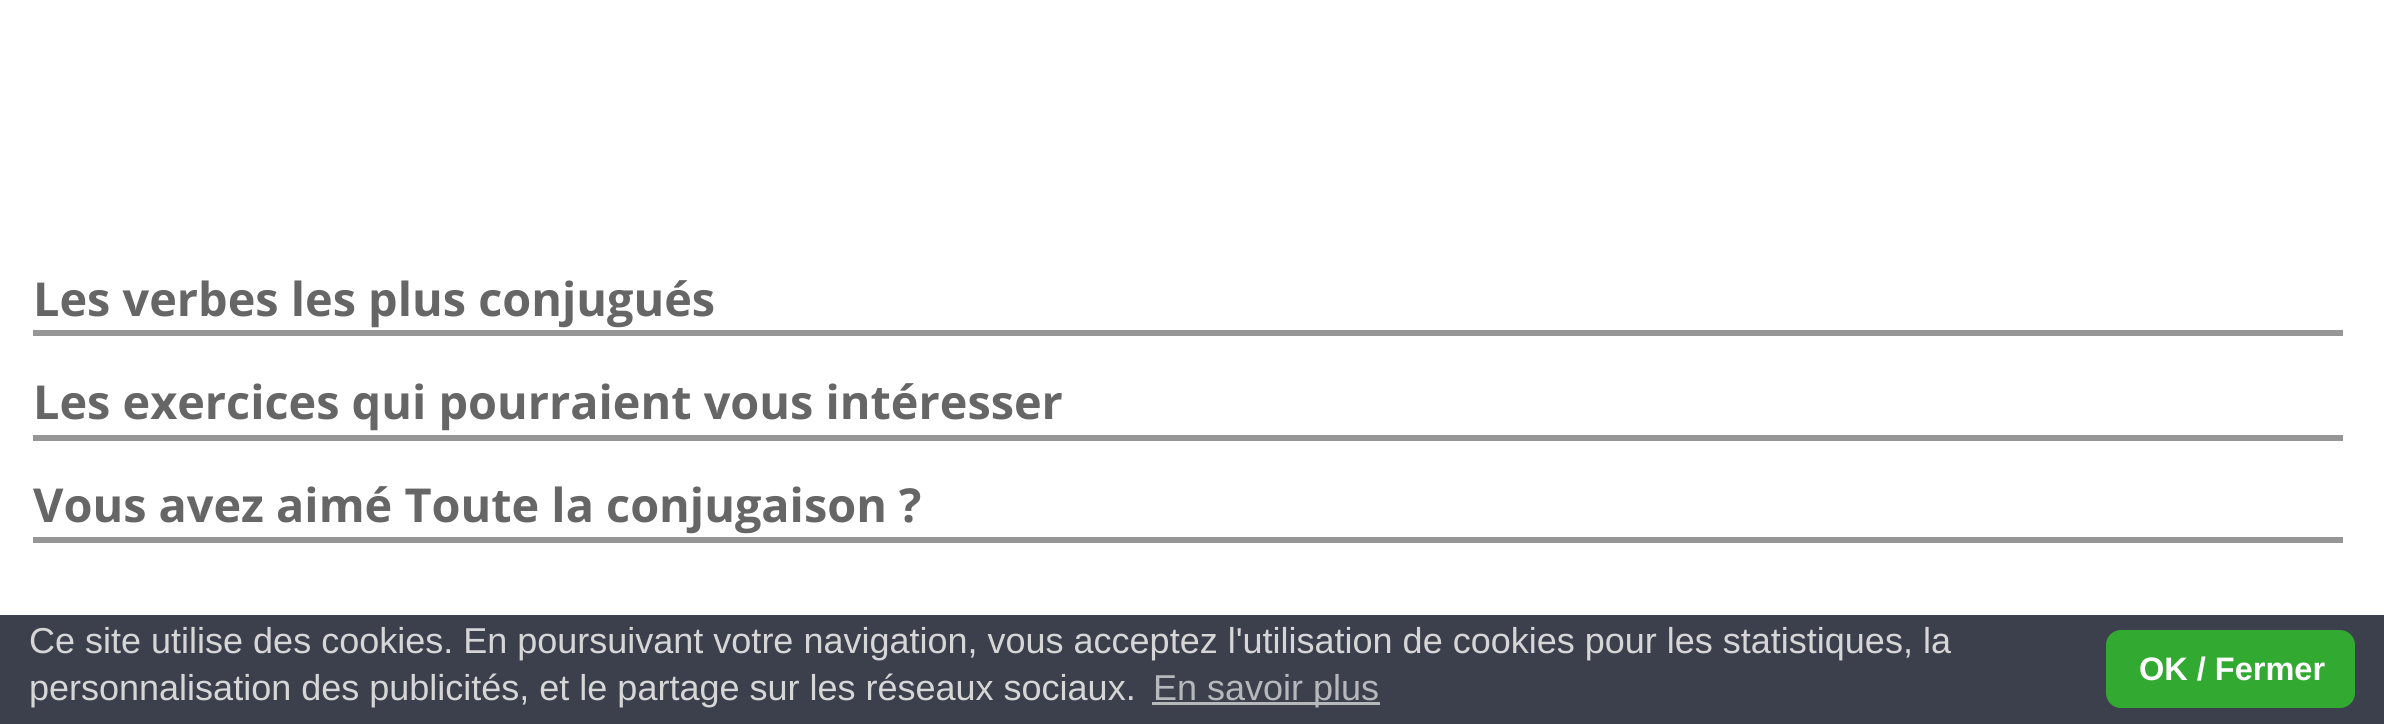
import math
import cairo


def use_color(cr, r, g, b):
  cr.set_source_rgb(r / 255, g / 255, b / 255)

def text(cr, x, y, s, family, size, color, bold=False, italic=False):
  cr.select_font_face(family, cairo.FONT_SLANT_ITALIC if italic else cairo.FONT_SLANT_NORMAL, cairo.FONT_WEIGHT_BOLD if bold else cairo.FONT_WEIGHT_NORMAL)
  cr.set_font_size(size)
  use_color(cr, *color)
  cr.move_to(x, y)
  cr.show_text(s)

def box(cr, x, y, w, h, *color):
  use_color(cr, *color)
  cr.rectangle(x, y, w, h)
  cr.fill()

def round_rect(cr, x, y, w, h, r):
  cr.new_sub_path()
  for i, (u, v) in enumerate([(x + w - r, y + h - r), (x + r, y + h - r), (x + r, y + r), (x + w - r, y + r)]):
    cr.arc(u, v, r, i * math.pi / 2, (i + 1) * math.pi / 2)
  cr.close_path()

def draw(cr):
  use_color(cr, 255, 255, 255)
  cr.paint()
  box(cr, 33, 330, 2310, 6, 150, 150, 150)
  box(cr, 33, 435, 2310, 6, 150, 150, 150)
  box(cr, 33, 537, 2310, 6, 150, 150, 150)
  box(cr, 0, 615, 2384, 109, 60, 64, 77)
  box(cr, 1152, 702, 228, 3, 183, 184, 187)
  use_color(cr, 50, 170, 50)
  round_rect(cr, 2106, 630, 249, 78, 15)
  cr.fill()
  text(cr, 33, 316, "Les verbes les plus conjugués", "Open Sans", 46.8, (102, 102, 102), bold=True)
  text(cr, 33, 419, "Les exercices qui pourraient vous intéresser", "Open Sans", 46.8, (102, 102, 102), bold=True)
  text(cr, 33, 522, "Vous avez aimé Toute la conjugaison ?", "Open Sans", 46.8, (102, 102, 102), bold=True)
  text(cr, 29, 653, "Ce site utilise des cookies. En poursuivant votre navigation, vous acceptez l'utilisation de cookies pour les statistiques, la", "Liberation Sans", 36, (214, 214, 214))
  text(cr, 29, 700, "personnalisation des publicités, et le partage sur les réseaux sociaux.", "Liberation Sans", 36, (214, 214, 214))
  text(cr, 1153, 700, "En savoir plus", "Liberation Sans", 36, (183, 184, 187))
  text(cr, 2139, 680, "OK / Fermer", "Liberation Sans", 32.5, (255, 255, 255), bold=True)


surface = cairo.ImageSurface(cairo.FORMAT_RGB24, 2384, 724)
cr = cairo.Context(surface)
options = cairo.FontOptions()
options.set_hint_metrics(cairo.HINT_METRICS_OFF)
options.set_hint_style(cairo.HINT_STYLE_NONE)
cr.set_font_options(options)
cr.set_miter_limit(4)
draw(cr)
surface.write_to_png("out.png")
